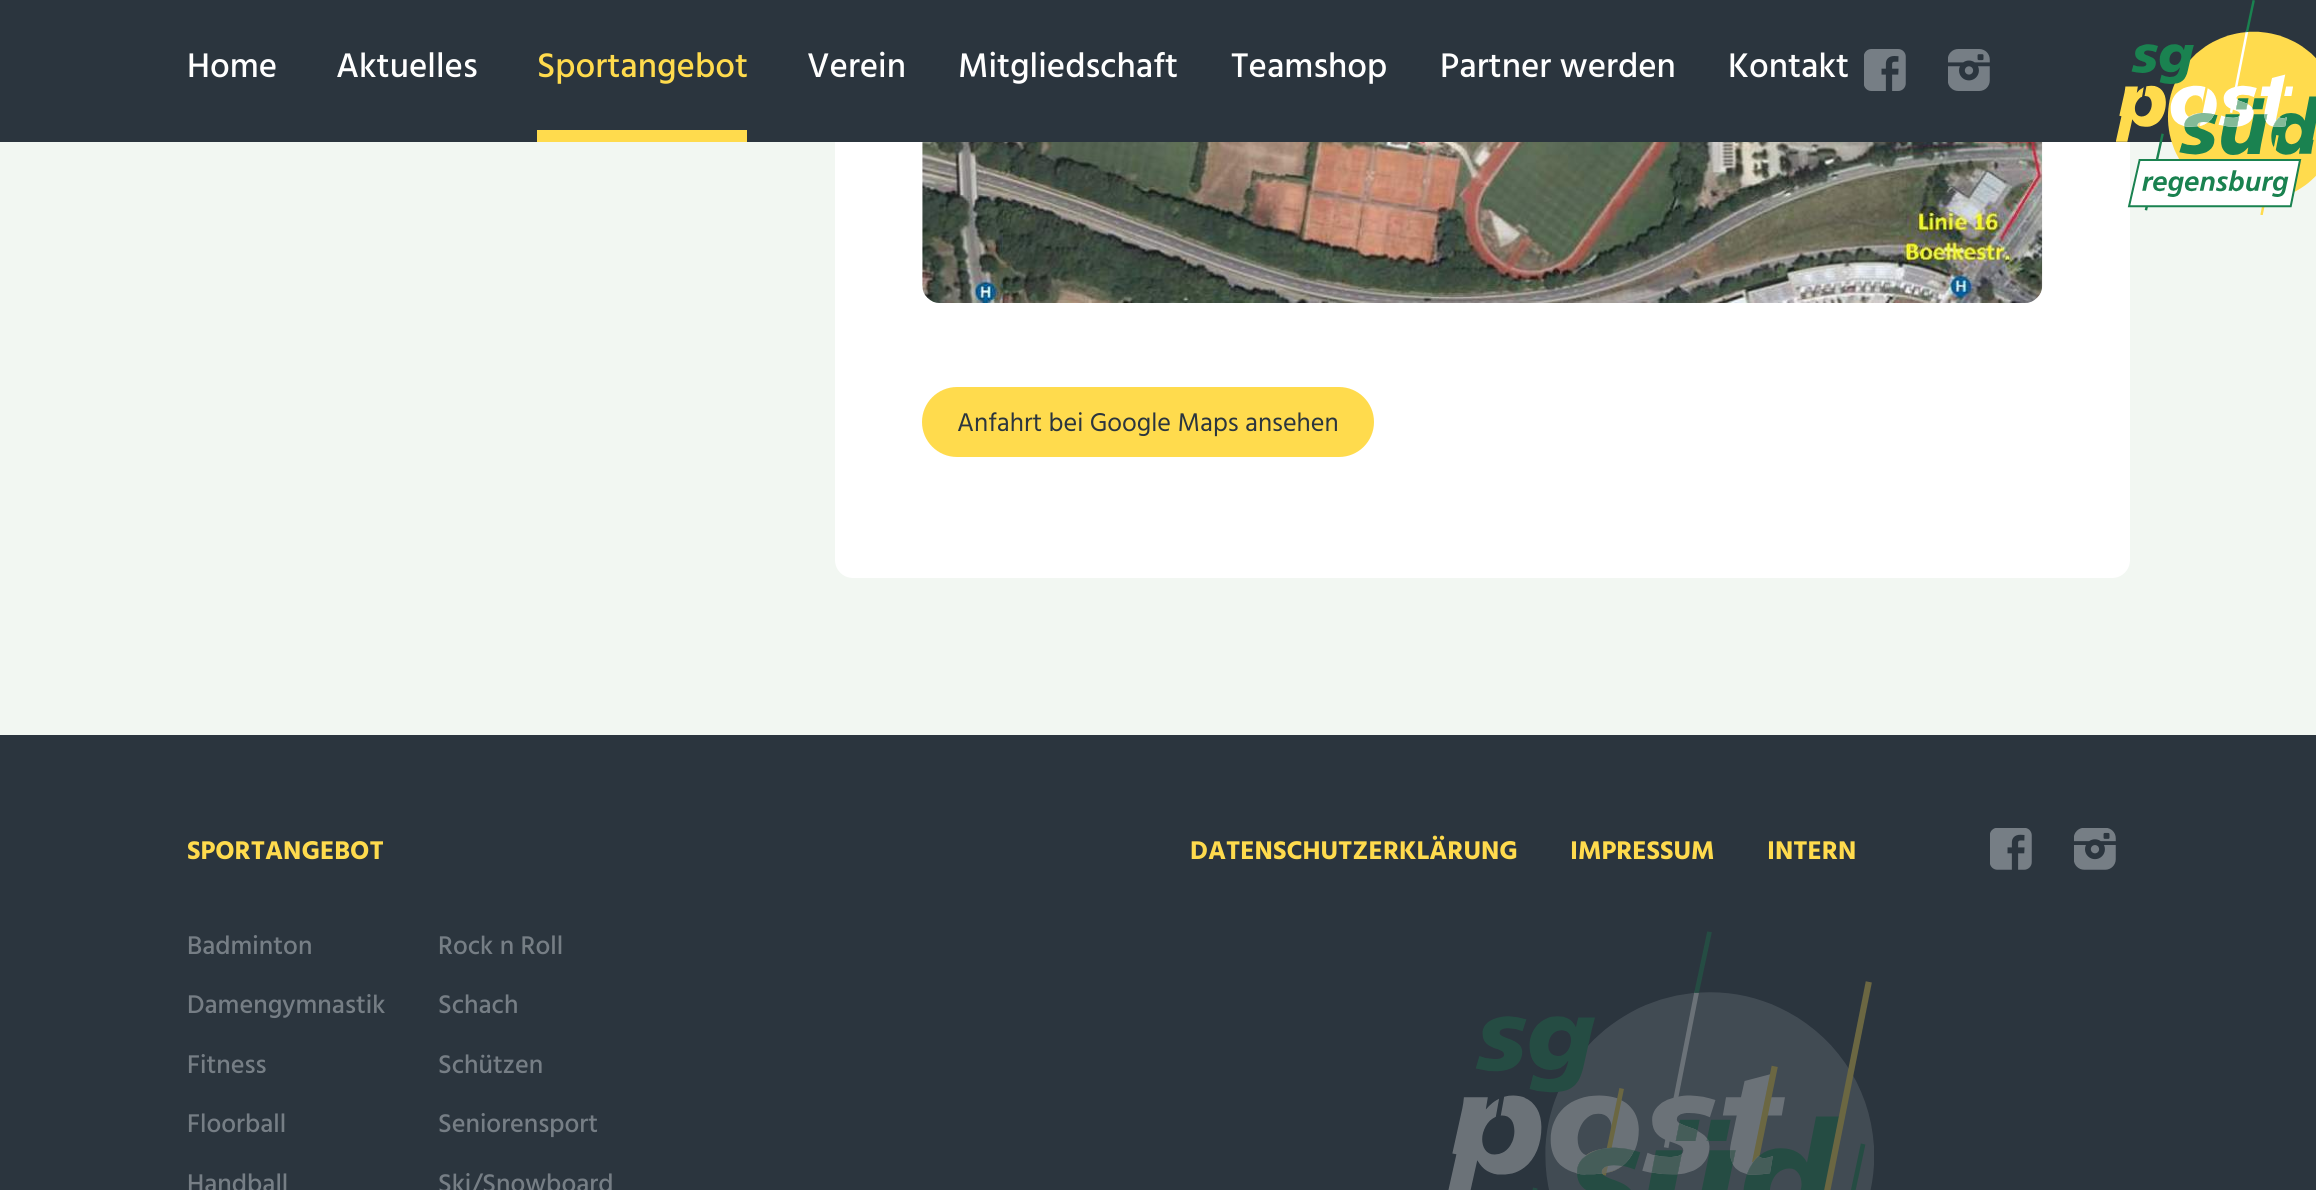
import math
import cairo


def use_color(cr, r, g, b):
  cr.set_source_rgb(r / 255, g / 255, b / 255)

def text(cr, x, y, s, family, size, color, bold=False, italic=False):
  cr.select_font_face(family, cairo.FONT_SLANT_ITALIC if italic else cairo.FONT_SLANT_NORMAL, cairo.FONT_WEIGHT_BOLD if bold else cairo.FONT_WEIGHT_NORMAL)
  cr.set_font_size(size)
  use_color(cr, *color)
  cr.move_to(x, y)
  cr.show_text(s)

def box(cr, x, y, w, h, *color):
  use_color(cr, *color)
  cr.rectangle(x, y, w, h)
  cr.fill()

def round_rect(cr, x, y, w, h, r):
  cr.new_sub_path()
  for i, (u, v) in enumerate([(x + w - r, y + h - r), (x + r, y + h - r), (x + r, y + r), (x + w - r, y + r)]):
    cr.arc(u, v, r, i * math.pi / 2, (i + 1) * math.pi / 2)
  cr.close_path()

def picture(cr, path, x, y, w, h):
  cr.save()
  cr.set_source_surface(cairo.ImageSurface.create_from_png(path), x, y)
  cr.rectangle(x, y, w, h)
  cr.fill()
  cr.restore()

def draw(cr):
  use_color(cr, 242, 247, 242)
  cr.paint()
  use_color(cr, 255, 255, 255)
  round_rect(cr, 835, -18, 1295, 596, 18)
  cr.fill()
  box(cr, 0, 0, 2316, 142, 43, 53, 62)
  picture(cr, "img_01.png", 1864, 49, 42, 42)
  picture(cr, "img_02.png", 1948, 49, 42, 42)
  box(cr, 537, 130, 210, 12, 255, 219, 77)
  picture(cr, "img_03.png", 2116, 0, 200, 215)
  picture(cr, "img_04.png", 922, 142, 1121, 161)
  round_rect(cr, 922, 387, 452, 70, 35)
  cr.fill()
  box(cr, 0, 735, 2316, 455, 43, 53, 62)
  picture(cr, "img_05.png", 1990, 828, 42, 42)
  picture(cr, "img_06.png", 2074, 828, 42, 42)
  picture(cr, "img_07.png", 1448, 931, 426, 259)
  text(cr, 187, 77, "Home", "Hind Medium", 35, (255, 255, 255))
  text(cr, 336, 77, "Aktuelles", "Hind Medium", 35, (255, 255, 255))
  text(cr, 537, 77, "Sportangebot", "Hind Medium", 35, (255, 219, 77))
  text(cr, 807, 77, "Verein", "Hind Medium", 35, (255, 255, 255))
  text(cr, 958, 77, "Mitgliedschaft", "Hind Medium", 35, (255, 255, 255))
  text(cr, 1231, 77, "Teamshop", "Hind Medium", 35, (255, 255, 255))
  text(cr, 1440, 77, "Partner werden", "Hind Medium", 35, (255, 255, 255))
  text(cr, 1728, 77, "Kontakt", "Hind Medium", 35, (255, 255, 255))
  text(cr, 957, 431, "Anfahrt bei Google Maps ansehen", "Hind", 26.25, (43, 53, 62))
  text(cr, 187, 859, "SPORTANGEBOT", "Hind", 26.25, (255, 219, 77), bold=True)
  text(cr, 187, 954, "Badminton", "Hind Medium", 26.25, (118, 126, 133))
  text(cr, 438, 954, "Rock n Roll", "Hind Medium", 26.25, (118, 126, 133))
  text(cr, 187, 1013, "Damengymnastik", "Hind Medium", 26.25, (118, 126, 133))
  text(cr, 438, 1013, "Schach", "Hind Medium", 26.25, (118, 126, 133))
  text(cr, 187, 1073, "Fitness", "Hind Medium", 26.25, (118, 126, 133))
  text(cr, 438, 1073, "Schützen", "Hind Medium", 26.25, (118, 126, 133))
  text(cr, 187, 1132, "Floorball", "Hind Medium", 26.25, (118, 126, 133))
  text(cr, 438, 1132, "Seniorensport", "Hind Medium", 26.25, (118, 126, 133))
  text(cr, 187, 1192, "Handball", "Hind Medium", 26.25, (118, 126, 133))
  text(cr, 438, 1192, "Ski/Snowboard", "Hind Medium", 26.25, (118, 126, 133))
  text(cr, 1190, 859, "DATENSCHUTZERKLÄRUNG", "Hind", 26.25, (255, 219, 77), bold=True)
  text(cr, 1570, 859, "IMPRESSUM", "Hind", 26.25, (255, 219, 77), bold=True)
  text(cr, 1767, 859, "INTERN", "Hind", 26.25, (255, 219, 77), bold=True)


surface = cairo.ImageSurface(cairo.FORMAT_RGB24, 2316, 1190)
cr = cairo.Context(surface)
options = cairo.FontOptions()
options.set_hint_metrics(cairo.HINT_METRICS_OFF)
options.set_hint_style(cairo.HINT_STYLE_NONE)
cr.set_font_options(options)
cr.set_miter_limit(4)
draw(cr)
surface.write_to_png("out.png")
